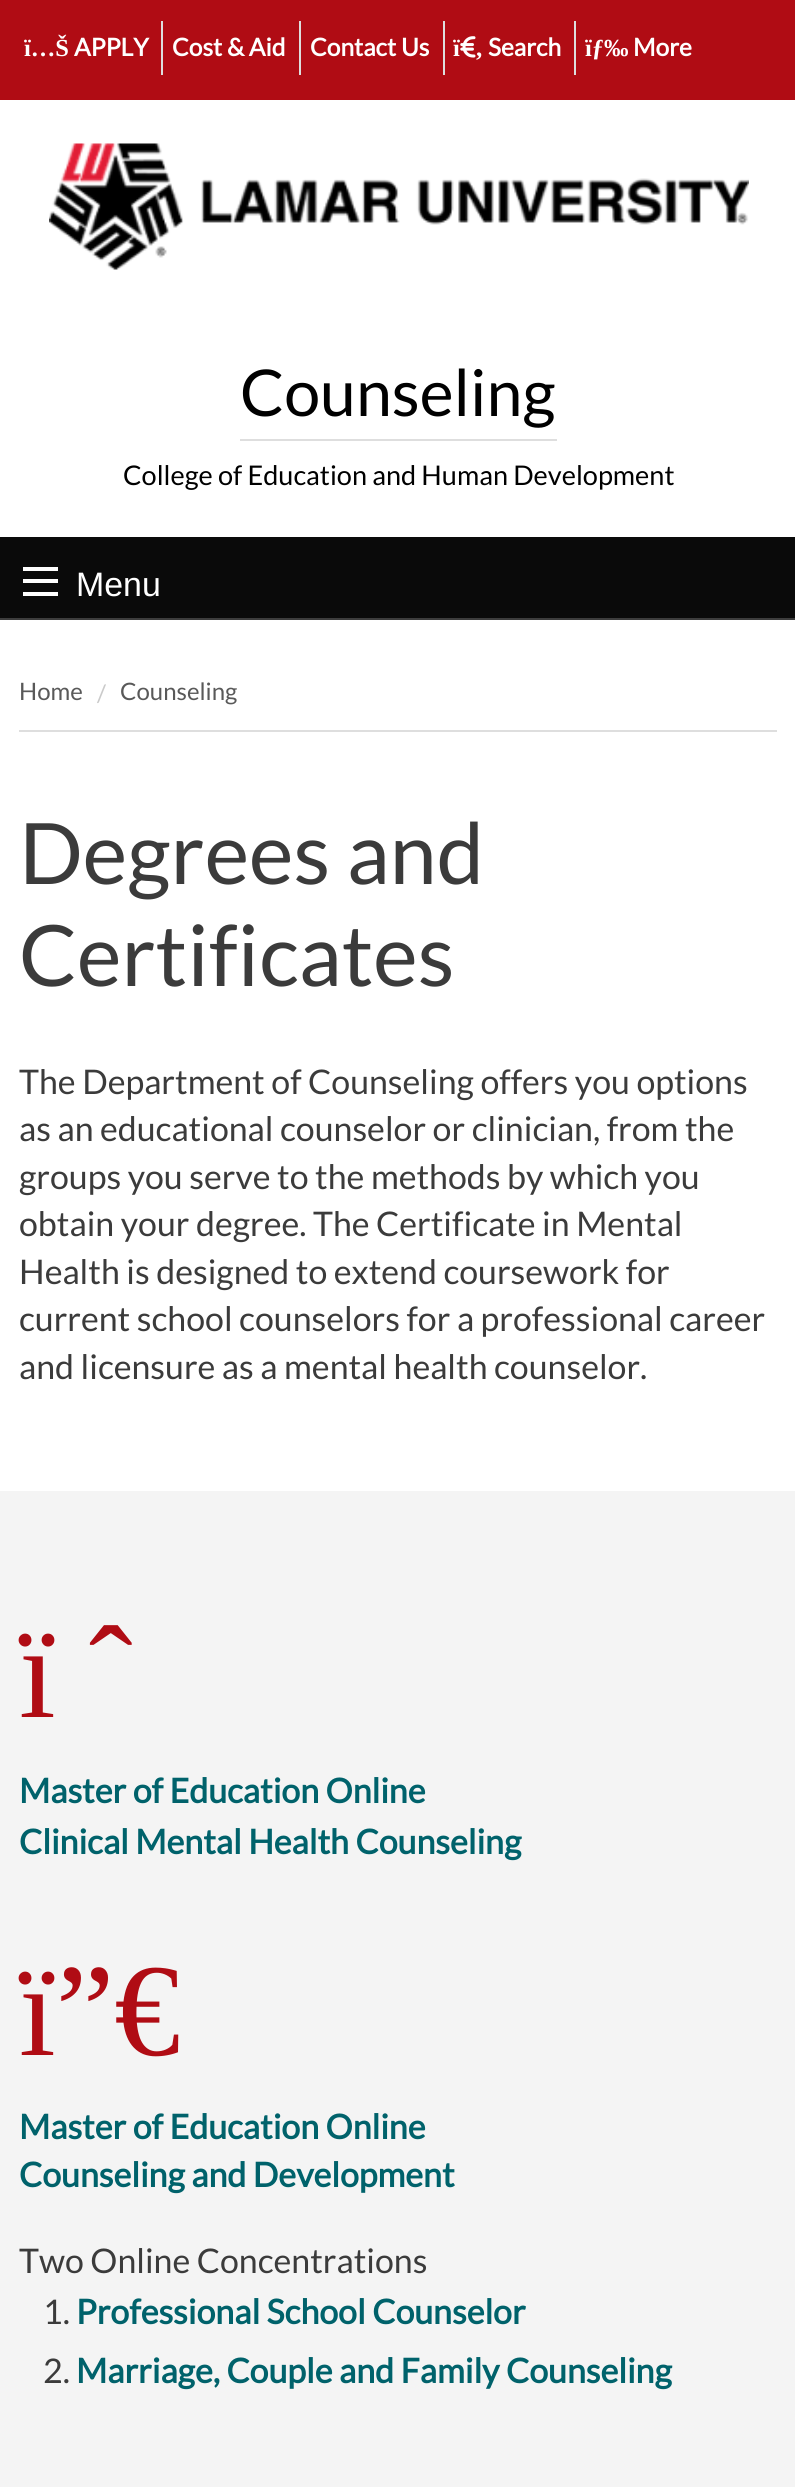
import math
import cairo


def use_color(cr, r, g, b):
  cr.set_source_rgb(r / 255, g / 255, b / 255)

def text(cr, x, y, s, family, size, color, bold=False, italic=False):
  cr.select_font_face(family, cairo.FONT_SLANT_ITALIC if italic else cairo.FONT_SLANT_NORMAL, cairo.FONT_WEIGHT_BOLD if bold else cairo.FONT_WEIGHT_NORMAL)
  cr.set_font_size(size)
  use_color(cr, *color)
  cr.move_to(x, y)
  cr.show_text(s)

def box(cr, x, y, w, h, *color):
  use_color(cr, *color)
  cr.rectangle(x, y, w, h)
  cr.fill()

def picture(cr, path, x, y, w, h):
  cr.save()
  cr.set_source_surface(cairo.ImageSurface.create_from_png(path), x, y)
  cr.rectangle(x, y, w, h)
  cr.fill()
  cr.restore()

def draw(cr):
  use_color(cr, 255, 255, 255)
  cr.paint()
  box(cr, 0, 0, 795, 100, 176, 12, 20)
  box(cr, 161, 21, 2, 54, 222, 222, 222)
  box(cr, 299, 21, 2, 54, 222, 222, 222)
  box(cr, 443, 21, 2, 54, 222, 222, 222)
  picture(cr, "img_01.png", 460, 36, 16, 22)
  box(cr, 574, 21, 2, 54, 222, 222, 222)
  picture(cr, "img_02.png", 49, 143, 700, 127)
  box(cr, 240, 439, 317, 2, 222, 222, 222)
  box(cr, 0, 618, 795, 2, 61, 61, 61)
  box(cr, 0, 537, 795, 81, 10, 10, 10)
  box(cr, 23, 592, 35, 4, 254, 254, 254)
  box(cr, 23, 579, 35, 4, 254, 254, 254)
  box(cr, 23, 567, 35, 4, 254, 254, 254)
  box(cr, 19, 730, 758, 2, 222, 222, 222)
  box(cr, 0, 1491, 795, 996, 244, 244, 244)
  text(cr, 24, 56, "ï…Š", "Liberation Serif", 24.5, (255, 255, 255), bold=True)
  text(cr, 74, 56, "APPLY", "Lato", 24.5, (255, 255, 255), bold=True)
  text(cr, 172, 56, "Cost & Aid", "Lato", 24.5, (255, 255, 255), bold=True)
  text(cr, 310, 56, "Contact Us", "Lato", 24.5, (255, 255, 255), bold=True)
  text(cr, 453, 56, "ï", "Liberation Serif", 24.5, (255, 255, 255), bold=True)
  text(cr, 475, 56, "‚", "Liberation Serif", 24.5, (255, 255, 255), bold=True)
  text(cr, 488, 56, "Search", "Lato", 24.5, (255, 255, 255), bold=True)
  text(cr, 585, 56, "ïƒ‰", "Liberation Serif", 24.5, (255, 255, 255), bold=True)
  text(cr, 633, 56, "More", "Lato", 24.5, (255, 255, 255), bold=True)
  text(cr, 240, 416, "Counseling", "Lato", 64.5, (0, 0, 0))
  text(cr, 123, 485, "College of Education and Human Development", "Lato", 27.1, (0, 0, 0))
  text(cr, 76, 596, "Menu", "Liberation Sans", 33.9, (255, 255, 255))
  text(cr, 19, 700, "Home", "Lato", 24, (89, 89, 89))
  text(cr, 97, 702, "/", "Lato", 24, (202, 202, 202))
  text(cr, 120, 700, "Counseling", "Lato", 24, (89, 89, 89))
  text(cr, 19, 884, "Degrees and", "Lato", 84.75, (59, 59, 59))
  text(cr, 19, 986, "Certificates", "Lato", 84.75, (59, 59, 59))
  text(cr, 19, 1094, "The Department of Counseling offers you options", "Lato", 33.9, (59, 59, 59))
  text(cr, 19, 1141, "as an educational counselor or clinician, from the", "Lato", 33.9, (59, 59, 59))
  text(cr, 19, 1189, "groups you serve to the methods by which you", "Lato", 33.9, (59, 59, 59))
  text(cr, 19, 1236, "obtain your degree. The Certificate in Mental", "Lato", 33.9, (59, 59, 59))
  text(cr, 19, 1284, "Health is designed to extend coursework for", "Lato", 33.9, (59, 59, 59))
  text(cr, 19, 1331, "current school counselors for a professional career", "Lato", 33.9, (59, 59, 59))
  text(cr, 19, 1379, "and licensure as a mental health counselor.", "Lato", 33.9, (59, 59, 59))
  text(cr, 19, 1717, "ï ˆ", "Liberation Serif", 132, (176, 12, 20))
  text(cr, 19, 1803, "Master of Education Online", "Lato", 33.9, (0, 98, 107), bold=True)
  text(cr, 19, 1854, "Clinical Mental Health Counseling", "Lato", 33.9, (0, 98, 107), bold=True)
  text(cr, 19, 2055, "ï”€", "Liberation Serif", 132, (176, 12, 20))
  text(cr, 19, 2139, "Master of Education Online", "Lato", 33.9, (0, 98, 107), bold=True)
  text(cr, 19, 2187, "Counseling and Development", "Lato", 33.9, (0, 98, 107), bold=True)
  text(cr, 19, 2273, "Two Online Concentrations", "Lato", 33.9, (59, 59, 59))
  text(cr, 43, 2324, "1.", "Lato", 33.9, (59, 59, 59))
  text(cr, 76, 2324, "Professional School Counselor", "Lato", 33.9, (0, 98, 107), bold=True)
  text(cr, 43, 2383, "2.", "Lato", 33.9, (59, 59, 59))
  text(cr, 76, 2383, "Marriage, Couple and Family Counseling", "Lato", 33.9, (0, 98, 107), bold=True)


surface = cairo.ImageSurface(cairo.FORMAT_RGB24, 795, 2487)
cr = cairo.Context(surface)
options = cairo.FontOptions()
options.set_hint_metrics(cairo.HINT_METRICS_OFF)
options.set_hint_style(cairo.HINT_STYLE_NONE)
cr.set_font_options(options)
cr.set_miter_limit(4)
draw(cr)
surface.write_to_png("out.png")
